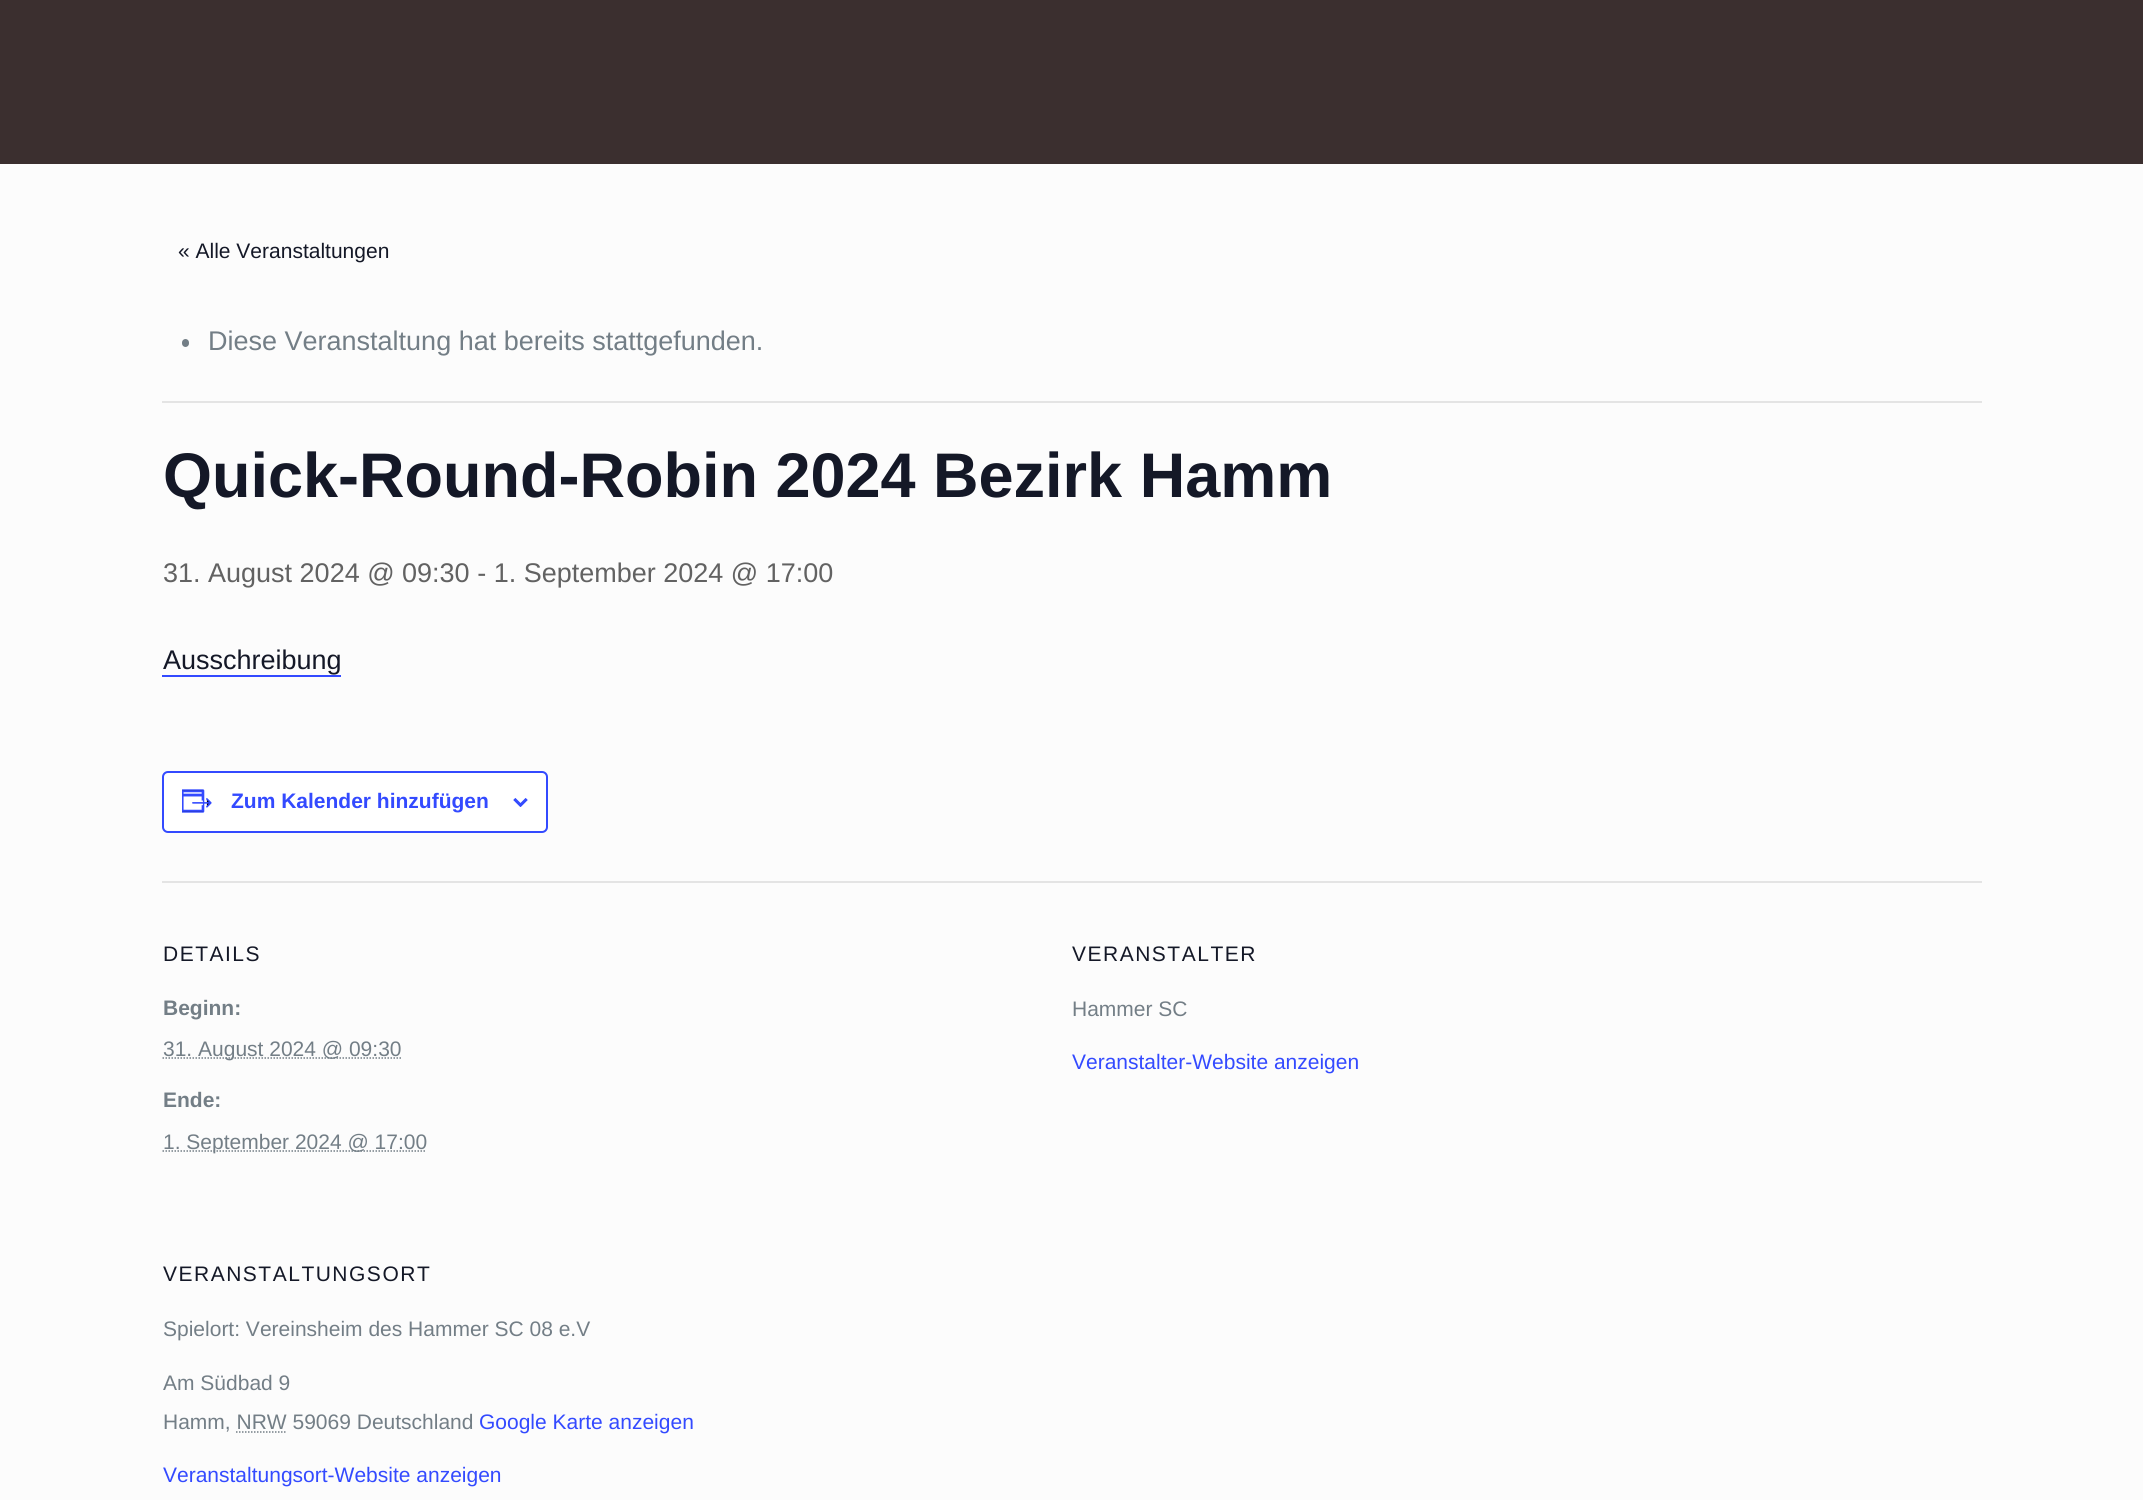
import math
import cairo


def use_color(cr, r, g, b):
  cr.set_source_rgb(r / 255, g / 255, b / 255)

def text(cr, x, y, s, family, size, color, bold=False, italic=False):
  cr.select_font_face(family, cairo.FONT_SLANT_ITALIC if italic else cairo.FONT_SLANT_NORMAL, cairo.FONT_WEIGHT_BOLD if bold else cairo.FONT_WEIGHT_NORMAL)
  cr.set_font_size(size)
  use_color(cr, *color)
  cr.move_to(x, y)
  cr.show_text(s)

def spaced_text(cr, x, y, s, letter, word):
  cr.move_to(x, y)
  for ch in s:
    cr.show_text(ch)
    cr.rel_move_to(letter + word * (ch == ' '), 0)

def box(cr, x, y, w, h, *color):
  use_color(cr, *color)
  cr.rectangle(x, y, w, h)
  cr.fill()

def round_rect(cr, x, y, w, h, r):
  cr.new_sub_path()
  for i, (u, v) in enumerate([(x + w - r, y + h - r), (x + r, y + h - r), (x + r, y + r), (x + w - r, y + r)]):
    cr.arc(u, v, r, i * math.pi / 2, (i + 1) * math.pi / 2)
  cr.close_path()

def picture(cr, path, x, y, w, h):
  cr.save()
  cr.set_source_surface(cairo.ImageSurface.create_from_png(path), x, y)
  cr.rectangle(x, y, w, h)
  cr.fill()
  cr.restore()

def draw(cr):
  use_color(cr, 252, 252, 252)
  cr.paint()
  box(cr, 0, 0, 2143, 164, 59, 47, 47)
  box(cr, 162, 401, 1820, 2, 228, 228, 228)
  use_color(cr, 115, 126, 134)
  round_rect(cr, 182, 339, 7, 8, 3.5)
  cr.fill()
  box(cr, 162, 675, 179, 2, 51, 74, 255)
  use_color(cr, 255, 255, 255)
  round_rect(cr, 163, 772, 384, 60, 5)
  cr.fill_preserve()
  use_color(cr, 51, 74, 255)
  cr.stroke()
  picture(cr, "img_01.png", 182, 789, 30, 24)
  picture(cr, "img_02.png", 513, 798, 15, 9)
  box(cr, 162, 881, 1820, 2, 228, 228, 228)
  cr.new_path()
  cr.move_to(162.5, 1058)
  cr.line_to(401, 1058)
  use_color(cr, 115, 126, 134)
  cr.set_line_width(1.5)
  cr.set_dash([1.5, 1.5])
  cr.stroke()
  cr.new_path()
  cr.move_to(162.5, 1151)
  cr.line_to(426.5, 1151)
  cr.stroke()
  cr.new_path()
  cr.move_to(236, 1432)
  cr.line_to(286, 1432)
  cr.stroke()
  text(cr, 178, 258, "« Alle Veranstaltungen", "Liberation Sans", 21, (20, 24, 39))
  text(cr, 208, 350, "Diese Veranstaltung hat bereits stattgefunden.", "Liberation Sans", 27, (115, 126, 134))
  text(cr, 163, 497, "Quick-Round-Robin 2024 Bezirk Hamm", "Liberation Sans", 63, (20, 24, 39), bold=True)
  text(cr, 163, 582, "31. August 2024 @ 09:30 - 1. September 2024 @ 17:00", "Liberation Sans", 27, (98, 98, 98))
  text(cr, 163, 669, "Ausschreibung", "Liberation Sans", 27, (20, 24, 39))
  text(cr, 231, 808, "Zum Kalender hinzufügen", "Liberation Sans", 21, (51, 74, 255), bold=True)
  cr.select_font_face("Liberation Sans")
  use_color(cr, 20, 24, 39)
  spaced_text(cr, 163, 961, "DETAILS", 1.5, 0)
  text(cr, 163, 1015, "Beginn:", "Liberation Sans", 21, (115, 126, 134), bold=True)
  text(cr, 163, 1056, "31. August 2024 @ 09:30", "Liberation Sans", 21, (115, 126, 134))
  text(cr, 163, 1107, "Ende:", "Liberation Sans", 21, (115, 126, 134), bold=True)
  text(cr, 163, 1149, "1. September 2024 @ 17:00", "Liberation Sans", 21, (115, 126, 134))
  use_color(cr, 20, 24, 39)
  spaced_text(cr, 1072, 961, "VERANSTALTER", 1.5, 0)
  text(cr, 1072, 1016, "Hammer SC", "Liberation Sans", 21, (115, 126, 134))
  text(cr, 1072, 1069, "Veranstalter-Website anzeigen", "Liberation Sans", 21, (51, 74, 255))
  use_color(cr, 20, 24, 39)
  spaced_text(cr, 163, 1281, "VERANSTALTUNGSORT", 1.5, 0)
  text(cr, 163, 1336, "Spielort: Vereinsheim des Hammer SC 08 e.V", "Liberation Sans", 21, (115, 126, 134))
  text(cr, 163, 1390, "Am Südbad 9", "Liberation Sans", 21, (115, 126, 134))
  text(cr, 163, 1429, "Hamm, NRW 59069 Deutschland", "Liberation Sans", 21, (115, 126, 134))
  text(cr, 479, 1429, "Google Karte anzeigen", "Liberation Sans", 21, (51, 74, 255))
  text(cr, 163, 1482, "Veranstaltungsort-Website anzeigen", "Liberation Sans", 21, (51, 74, 255))


surface = cairo.ImageSurface(cairo.FORMAT_RGB24, 2143, 1500)
cr = cairo.Context(surface)
options = cairo.FontOptions()
options.set_hint_metrics(cairo.HINT_METRICS_OFF)
options.set_hint_style(cairo.HINT_STYLE_NONE)
cr.set_font_options(options)
cr.set_miter_limit(4)
draw(cr)
surface.write_to_png("out.png")
